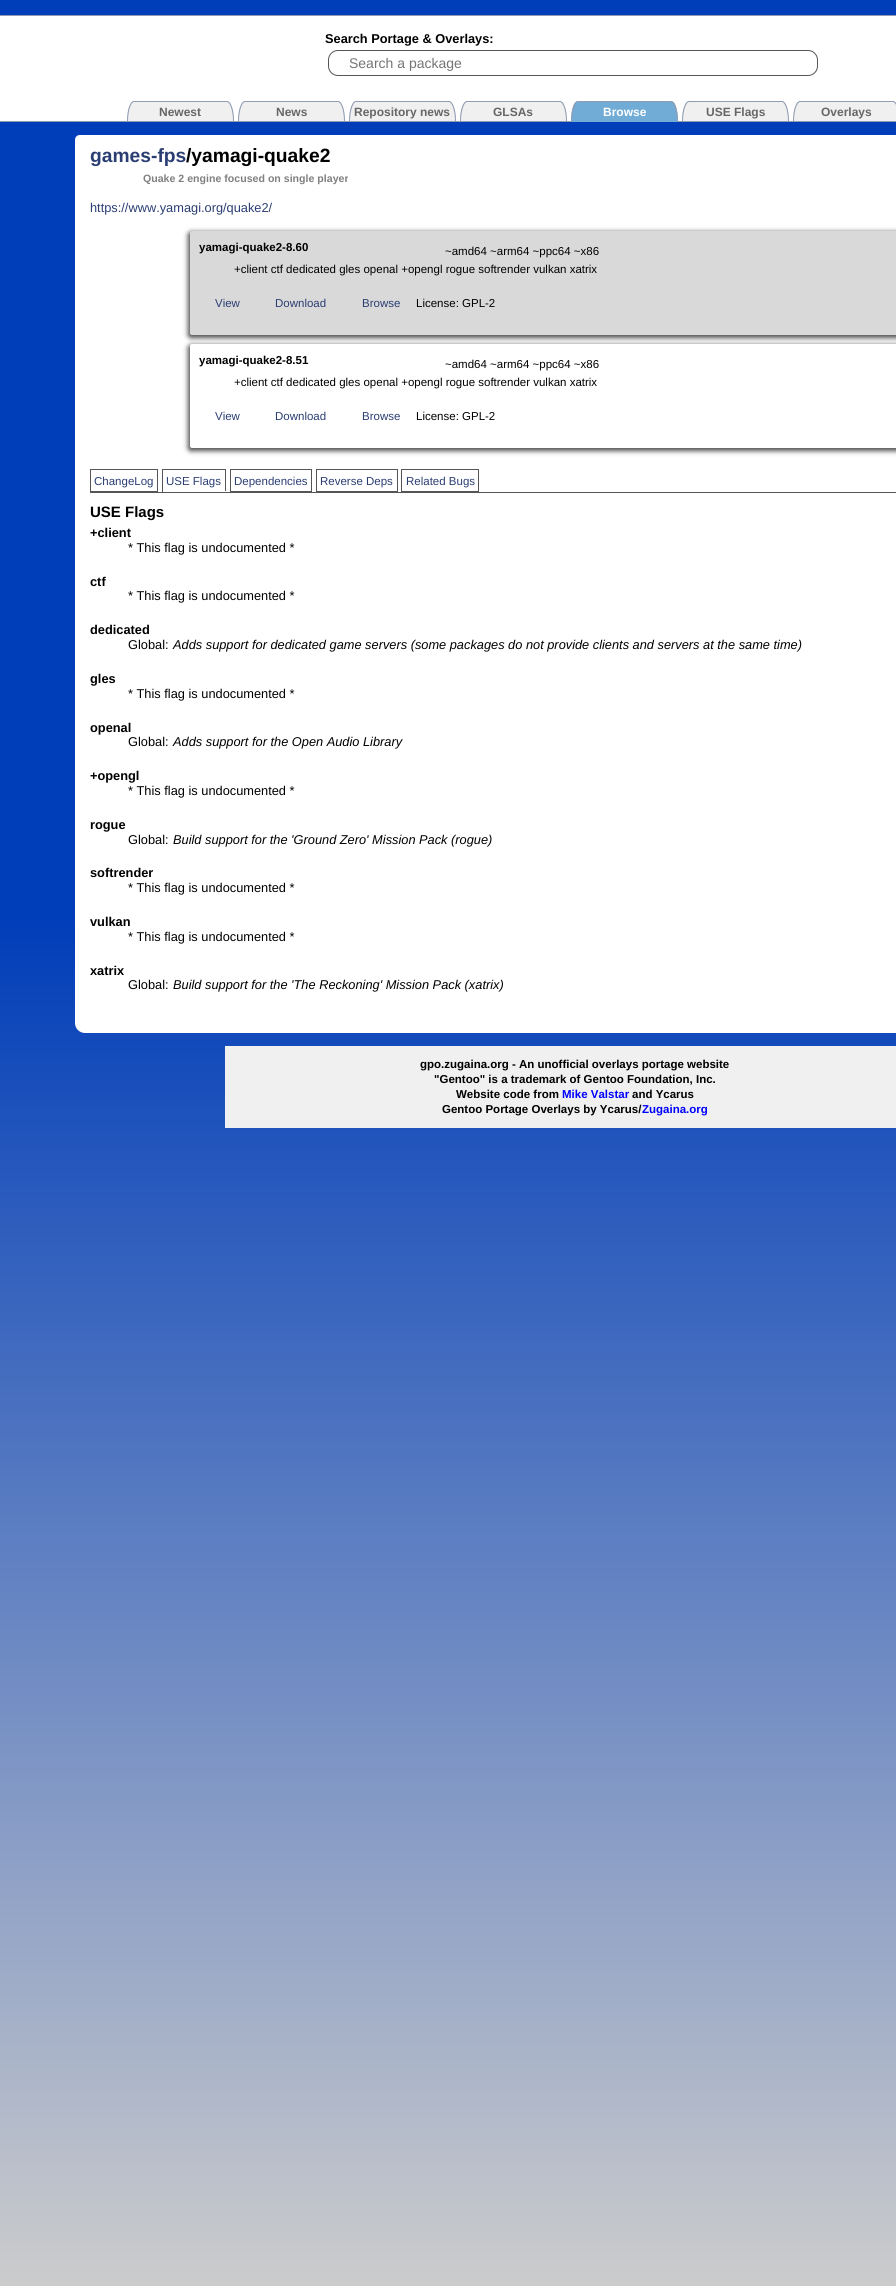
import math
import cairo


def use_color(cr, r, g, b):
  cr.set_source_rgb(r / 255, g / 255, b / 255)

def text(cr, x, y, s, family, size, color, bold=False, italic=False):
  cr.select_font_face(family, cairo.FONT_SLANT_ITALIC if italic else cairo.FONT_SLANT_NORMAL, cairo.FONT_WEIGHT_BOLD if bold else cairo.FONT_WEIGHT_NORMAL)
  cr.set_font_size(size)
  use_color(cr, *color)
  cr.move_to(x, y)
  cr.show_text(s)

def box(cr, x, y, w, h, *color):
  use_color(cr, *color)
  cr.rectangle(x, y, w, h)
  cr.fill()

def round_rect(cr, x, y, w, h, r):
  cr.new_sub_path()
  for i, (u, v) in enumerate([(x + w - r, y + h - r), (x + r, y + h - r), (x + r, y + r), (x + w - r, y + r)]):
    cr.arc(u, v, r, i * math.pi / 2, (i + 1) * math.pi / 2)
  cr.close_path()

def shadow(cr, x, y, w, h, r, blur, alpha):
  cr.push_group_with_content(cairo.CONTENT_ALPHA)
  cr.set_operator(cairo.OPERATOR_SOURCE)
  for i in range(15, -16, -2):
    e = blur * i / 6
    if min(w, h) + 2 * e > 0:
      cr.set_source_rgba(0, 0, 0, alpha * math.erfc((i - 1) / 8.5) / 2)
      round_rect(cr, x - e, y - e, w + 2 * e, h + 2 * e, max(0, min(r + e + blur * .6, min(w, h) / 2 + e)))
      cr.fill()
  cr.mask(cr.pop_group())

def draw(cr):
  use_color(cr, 255, 255, 255)
  cr.paint()
  gradient = cairo.LinearGradient(0, 0, 0, 2286)
  gradient.add_color_stop_rgba(0.4, 0, 0.239, 0.725, 1)
  gradient.add_color_stop_rgba(1, 0.8, 0.8, 0.8, 1)
  cr.set_source(gradient)
  cr.rectangle(0, 0, 896, 2286)
  cr.fill()
  box(cr, 0, 16, 896, 105, 255, 255, 255)
  box(cr, 0, 15, 896, 1, 143, 156, 180)
  box(cr, 0, 121, 896, 1, 143, 156, 180)
  round_rect(cr, 328.5, 50.5, 489, 25, 9.5)
  use_color(cr, 85, 85, 85)
  cr.set_line_width(1)
  cr.stroke()
  use_color(cr, 240, 240, 240)
  cr.new_path()
  cr.move_to(134, 101)
  cr.line_to(227, 101)
  cr.curve_to(231, 101, 234, 110, 234, 121)
  cr.line_to(127, 121)
  cr.curve_to(127, 110, 130, 101, 134, 101)
  cr.close_path()
  cr.fill()
  use_color(cr, 143, 156, 180)
  cr.set_fill_rule(cairo.FILL_RULE_EVEN_ODD)
  cr.new_path()
  cr.move_to(134, 101)
  cr.line_to(227, 101)
  cr.curve_to(231, 101, 234, 110, 234, 121)
  cr.line_to(127, 121)
  cr.curve_to(127, 110, 130, 101, 134, 101)
  cr.close_path()
  cr.move_to(134, 102)
  cr.line_to(227, 102)
  cr.curve_to(230, 102, 233, 111, 233, 121)
  cr.line_to(128, 121)
  cr.curve_to(128, 111, 131, 102, 134, 102)
  cr.close_path()
  cr.fill()
  use_color(cr, 240, 240, 240)
  cr.set_fill_rule(cairo.FILL_RULE_WINDING)
  cr.new_path()
  cr.move_to(245, 101)
  cr.line_to(338, 101)
  cr.curve_to(342, 101, 345, 110, 345, 121)
  cr.line_to(238, 121)
  cr.curve_to(238, 110, 241, 101, 245, 101)
  cr.close_path()
  cr.fill()
  use_color(cr, 143, 156, 180)
  cr.set_fill_rule(cairo.FILL_RULE_EVEN_ODD)
  cr.new_path()
  cr.move_to(245, 101)
  cr.line_to(338, 101)
  cr.curve_to(342, 101, 345, 110, 345, 121)
  cr.line_to(238, 121)
  cr.curve_to(238, 110, 241, 101, 245, 101)
  cr.close_path()
  cr.move_to(245, 102)
  cr.line_to(338, 102)
  cr.curve_to(341, 102, 344, 111, 344, 121)
  cr.line_to(239, 121)
  cr.curve_to(239, 111, 242, 102, 245, 102)
  cr.close_path()
  cr.fill()
  use_color(cr, 240, 240, 240)
  cr.set_fill_rule(cairo.FILL_RULE_WINDING)
  cr.new_path()
  cr.move_to(356, 101)
  cr.line_to(449, 101)
  cr.curve_to(453, 101, 456, 110, 456, 121)
  cr.line_to(349, 121)
  cr.curve_to(349, 110, 352, 101, 356, 101)
  cr.close_path()
  cr.fill()
  use_color(cr, 143, 156, 180)
  cr.set_fill_rule(cairo.FILL_RULE_EVEN_ODD)
  cr.new_path()
  cr.move_to(356, 101)
  cr.line_to(449, 101)
  cr.curve_to(453, 101, 456, 110, 456, 121)
  cr.line_to(349, 121)
  cr.curve_to(349, 110, 352, 101, 356, 101)
  cr.close_path()
  cr.move_to(356, 102)
  cr.line_to(449, 102)
  cr.curve_to(452, 102, 455, 111, 455, 121)
  cr.line_to(350, 121)
  cr.curve_to(350, 111, 353, 102, 356, 102)
  cr.close_path()
  cr.fill()
  use_color(cr, 240, 240, 240)
  cr.set_fill_rule(cairo.FILL_RULE_WINDING)
  cr.new_path()
  cr.move_to(467, 101)
  cr.line_to(560, 101)
  cr.curve_to(564, 101, 567, 110, 567, 121)
  cr.line_to(460, 121)
  cr.curve_to(460, 110, 463, 101, 467, 101)
  cr.close_path()
  cr.fill()
  use_color(cr, 143, 156, 180)
  cr.set_fill_rule(cairo.FILL_RULE_EVEN_ODD)
  cr.new_path()
  cr.move_to(467, 101)
  cr.line_to(560, 101)
  cr.curve_to(564, 101, 567, 110, 567, 121)
  cr.line_to(460, 121)
  cr.curve_to(460, 110, 463, 101, 467, 101)
  cr.close_path()
  cr.move_to(467, 102)
  cr.line_to(560, 102)
  cr.curve_to(563, 102, 566, 111, 566, 121)
  cr.line_to(461, 121)
  cr.curve_to(461, 111, 464, 102, 467, 102)
  cr.close_path()
  cr.fill()
  use_color(cr, 113, 172, 214)
  cr.set_fill_rule(cairo.FILL_RULE_WINDING)
  cr.new_path()
  cr.move_to(578, 101)
  cr.line_to(671, 101)
  cr.curve_to(675, 101, 678, 110, 678, 122)
  cr.line_to(571, 122)
  cr.curve_to(571, 110, 574, 101, 578, 101)
  cr.close_path()
  cr.fill()
  use_color(cr, 143, 156, 180)
  cr.new_path()
  cr.move_to(578, 101)
  cr.curve_to(577, 101, 575, 102, 574, 104)
  cr.line_to(575, 105)
  cr.curve_to(576, 103, 577, 102, 578, 102)
  cr.line_to(671, 102)
  cr.curve_to(672, 102, 673, 103, 674, 105)
  cr.line_to(675, 104)
  cr.curve_to(674, 102, 672, 101, 671, 101)
  cr.close_path()
  cr.fill()
  cr.new_path()
  cr.move_to(675, 104)
  cr.curve_to(677, 108, 678, 114.5, 678, 122)
  cr.line_to(677, 121)
  cr.curve_to(677, 114, 675.5, 108.5, 674, 105)
  cr.close_path()
  cr.fill()
  use_color(cr, 113, 172, 214)
  cr.set_fill_rule(cairo.FILL_RULE_EVEN_ODD)
  cr.new_path()
  cr.move_to(678, 122)
  cr.line_to(677, 121)
  cr.line_to(572, 121)
  cr.line_to(571, 122)
  cr.close_path()
  cr.move_to(572, 121)
  cr.line_to(572, 122)
  cr.close_path()
  cr.move_to(677, 121)
  cr.line_to(677, 122)
  cr.close_path()
  cr.fill()
  use_color(cr, 143, 156, 180)
  cr.set_fill_rule(cairo.FILL_RULE_WINDING)
  cr.new_path()
  cr.move_to(571, 122)
  cr.line_to(572, 121)
  cr.curve_to(572, 114, 573.5, 108.5, 575, 105)
  cr.line_to(574, 104)
  cr.curve_to(572, 108, 571, 114.5, 571, 122)
  cr.close_path()
  cr.fill()
  use_color(cr, 240, 240, 240)
  cr.new_path()
  cr.move_to(689, 101)
  cr.line_to(782, 101)
  cr.curve_to(786, 101, 789, 110, 789, 121)
  cr.line_to(682, 121)
  cr.curve_to(682, 110, 685, 101, 689, 101)
  cr.close_path()
  cr.fill()
  use_color(cr, 143, 156, 180)
  cr.set_fill_rule(cairo.FILL_RULE_EVEN_ODD)
  cr.new_path()
  cr.move_to(689, 101)
  cr.line_to(782, 101)
  cr.curve_to(786, 101, 789, 110, 789, 121)
  cr.line_to(682, 121)
  cr.curve_to(682, 110, 685, 101, 689, 101)
  cr.close_path()
  cr.move_to(689, 102)
  cr.line_to(782, 102)
  cr.curve_to(785, 102, 788, 111, 788, 121)
  cr.line_to(683, 121)
  cr.curve_to(683, 111, 686, 102, 689, 102)
  cr.close_path()
  cr.fill()
  use_color(cr, 240, 240, 240)
  cr.set_fill_rule(cairo.FILL_RULE_WINDING)
  cr.new_path()
  cr.move_to(800, 101)
  cr.line_to(893, 101)
  cr.curve_to(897, 101, 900, 110, 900, 121)
  cr.line_to(793, 121)
  cr.curve_to(793, 110, 796, 101, 800, 101)
  cr.close_path()
  cr.fill()
  use_color(cr, 143, 156, 180)
  cr.set_fill_rule(cairo.FILL_RULE_EVEN_ODD)
  cr.new_path()
  cr.move_to(800, 101)
  cr.line_to(893, 101)
  cr.curve_to(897, 101, 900, 110, 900, 121)
  cr.line_to(793, 121)
  cr.curve_to(793, 110, 796, 101, 800, 101)
  cr.close_path()
  cr.move_to(800, 102)
  cr.line_to(893, 102)
  cr.curve_to(896, 102, 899, 111, 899, 121)
  cr.line_to(794, 121)
  cr.curve_to(794, 111, 797, 102, 800, 102)
  cr.close_path()
  cr.fill()
  use_color(cr, 255, 255, 255)
  cr.new_path()
  cr.move_to(80, 135)
  cr.line_to(896, 135)
  cr.curve_to(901.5, 135, 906, 139.5, 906, 145)
  cr.line_to(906, 1028)
  cr.curve_to(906, 1031, 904, 1033, 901, 1033)
  cr.line_to(85, 1033)
  cr.curve_to(79.5, 1033, 75, 1028.5, 75, 1023)
  cr.line_to(75, 140)
  cr.curve_to(75, 137, 77, 135, 80, 135)
  cr.close_path()
  cr.fill()
  use_color(cr, 0, 0, 0)
  shadow(cr, 188, 232, 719, 106, 3, 2.5, 0.7)
  use_color(cr, 217, 217, 217)
  round_rect(cr, 190, 231, 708, 104, 2)
  cr.fill()
  use_color(cr, 0, 0, 0)
  shadow(cr, 188, 345, 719, 106, 3, 2.5, 0.7)
  use_color(cr, 255, 255, 255)
  round_rect(cr, 190, 344, 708, 104, 2)
  cr.fill()
  box(cr, 90, 492, 806, 1, 85, 85, 85)
  cr.rectangle(90.5, 469.5, 67, 22)
  cr.stroke()
  box(cr, 162, 469, 64, 1, 85, 85, 85)
  box(cr, 225, 469, 1, 23, 85, 85, 85)
  box(cr, 225, 491, 1, 1, 255, 255, 255)
  box(cr, 162, 469, 1, 23, 85, 85, 85)
  cr.rectangle(230.5, 469.5, 81, 22)
  cr.stroke()
  cr.rectangle(316.5, 469.5, 81, 22)
  cr.stroke()
  cr.rectangle(401.5, 469.5, 77, 22)
  cr.stroke()
  box(cr, 225, 1046, 671, 82, 240, 240, 240)
  text(cr, 325, 43, "Search Portage & Overlays:", "Liberation Sans", 12.8, (0, 0, 0), bold=True)
  text(cr, 349, 68, "Search a package", "Liberation Sans", 14, (117, 117, 117))
  text(cr, 159, 116, "Newest", "Liberation Sans", 12, (102, 102, 102), bold=True)
  text(cr, 276, 116, "News", "Liberation Sans", 12, (102, 102, 102), bold=True)
  text(cr, 354, 116, "Repository news", "Liberation Sans", 12, (102, 102, 102), bold=True)
  text(cr, 493, 116, "GLSAs", "Liberation Sans", 12, (102, 102, 102), bold=True)
  text(cr, 603, 116, "Browse", "Liberation Sans", 12, (255, 255, 255), bold=True)
  text(cr, 706, 116, "USE Flags", "Liberation Sans", 12, (102, 102, 102), bold=True)
  text(cr, 821, 116, "Overlays", "Liberation Sans", 12, (102, 102, 102), bold=True)
  text(cr, 90, 162, "games-fps", "Liberation Sans", 19.25, (43, 62, 115), bold=True)
  text(cr, 186, 162, "/yamagi-quake2", "Liberation Sans", 19.25, (0, 0, 0), bold=True)
  text(cr, 143, 182, "Quake 2 engine focused on single player", "Liberation Sans", 10.6, (128, 128, 128), bold=True)
  text(cr, 90, 212, "https://www.yamagi.org/quake2/", "Liberation Sans", 12.8, (43, 62, 115))
  text(cr, 199, 251, "yamagi-quake2-8.60", "Liberation Sans", 11.5, (0, 0, 0), bold=True)
  text(cr, 445, 255, "~amd64 ~arm64 ~ppc64 ~x86", "Liberation Sans", 11.5, (0, 0, 0))
  text(cr, 234, 273, "+client ctf dedicated gles openal +opengl rogue softrender vulkan xatrix", "Liberation Sans", 11.5, (0, 0, 0))
  text(cr, 215, 307, "View", "Liberation Sans", 11.5, (43, 62, 115))
  text(cr, 275, 307, "Download", "Liberation Sans", 11.5, (43, 62, 115))
  text(cr, 362, 307, "Browse", "Liberation Sans", 11.5, (43, 62, 115))
  text(cr, 416, 307, "License: GPL-2", "Liberation Sans", 11.5, (0, 0, 0))
  text(cr, 199, 364, "yamagi-quake2-8.51", "Liberation Sans", 11.5, (0, 0, 0), bold=True)
  text(cr, 445, 368, "~amd64 ~arm64 ~ppc64 ~x86", "Liberation Sans", 11.5, (0, 0, 0))
  text(cr, 234, 386, "+client ctf dedicated gles openal +opengl rogue softrender vulkan xatrix", "Liberation Sans", 11.5, (0, 0, 0))
  text(cr, 215, 420, "View", "Liberation Sans", 11.5, (43, 62, 115))
  text(cr, 275, 420, "Download", "Liberation Sans", 11.5, (43, 62, 115))
  text(cr, 362, 420, "Browse", "Liberation Sans", 11.5, (43, 62, 115))
  text(cr, 416, 420, "License: GPL-2", "Liberation Sans", 11.5, (0, 0, 0))
  text(cr, 94, 485, "ChangeLog", "Liberation Sans", 11.5, (43, 62, 115))
  text(cr, 166, 485, "USE Flags", "Liberation Sans", 11.5, (43, 62, 115))
  text(cr, 234, 485, "Dependencies", "Liberation Sans", 11.5, (43, 62, 115))
  text(cr, 320, 485, "Reverse Deps", "Liberation Sans", 11.5, (43, 62, 115))
  text(cr, 406, 485, "Related Bugs", "Liberation Sans", 11.5, (43, 62, 115))
  text(cr, 90, 517, "USE Flags", "Liberation Sans", 15, (0, 0, 0), bold=True)
  text(cr, 90, 537, "+client", "Liberation Sans", 12.8, (0, 0, 0), bold=True)
  text(cr, 128, 552, "* This flag is undocumented *", "Liberation Sans", 12.8, (0, 0, 0))
  text(cr, 90, 586, "ctf", "Liberation Sans", 12.8, (0, 0, 0), bold=True)
  text(cr, 128, 600, "* This flag is undocumented *", "Liberation Sans", 12.8, (0, 0, 0))
  text(cr, 90, 634, "dedicated", "Liberation Sans", 12.8, (0, 0, 0), bold=True)
  text(cr, 128, 649, "Global:", "Liberation Sans", 12.8, (0, 0, 0))
  text(cr, 173, 649, "Adds support for dedicated game servers (some packages do not provide clients and servers at the same time)", "Liberation Sans", 12.8, (0, 0, 0), italic=True)
  text(cr, 90, 683, "gles", "Liberation Sans", 12.8, (0, 0, 0), bold=True)
  text(cr, 128, 698, "* This flag is undocumented *", "Liberation Sans", 12.8, (0, 0, 0))
  text(cr, 90, 732, "openal", "Liberation Sans", 12.8, (0, 0, 0), bold=True)
  text(cr, 128, 746, "Global:", "Liberation Sans", 12.8, (0, 0, 0))
  text(cr, 173, 746, "Adds support for the Open Audio Library", "Liberation Sans", 12.8, (0, 0, 0), italic=True)
  text(cr, 90, 780, "+opengl", "Liberation Sans", 12.8, (0, 0, 0), bold=True)
  text(cr, 128, 795, "* This flag is undocumented *", "Liberation Sans", 12.8, (0, 0, 0))
  text(cr, 90, 829, "rogue", "Liberation Sans", 12.8, (0, 0, 0), bold=True)
  text(cr, 128, 844, "Global:", "Liberation Sans", 12.8, (0, 0, 0))
  text(cr, 173, 844, "Build support for the 'Ground Zero' Mission Pack (rogue)", "Liberation Sans", 12.8, (0, 0, 0), italic=True)
  text(cr, 90, 877, "softrender", "Liberation Sans", 12.8, (0, 0, 0), bold=True)
  text(cr, 128, 892, "* This flag is undocumented *", "Liberation Sans", 12.8, (0, 0, 0))
  text(cr, 90, 926, "vulkan", "Liberation Sans", 12.8, (0, 0, 0), bold=True)
  text(cr, 128, 941, "* This flag is undocumented *", "Liberation Sans", 12.8, (0, 0, 0))
  text(cr, 90, 975, "xatrix", "Liberation Sans", 12.8, (0, 0, 0), bold=True)
  text(cr, 128, 989, "Global:", "Liberation Sans", 12.8, (0, 0, 0))
  text(cr, 173, 989, "Build support for the 'The Reckoning' Mission Pack (xatrix)", "Liberation Sans", 12.8, (0, 0, 0), italic=True)
  text(cr, 420, 1068, "gpo.zugaina.org - An unofficial overlays portage website", "Liberation Sans", 11.5, (0, 0, 0), bold=True)
  text(cr, 434, 1083, "\"Gentoo\" is a trademark of Gentoo Foundation, Inc.", "Liberation Sans", 11.5, (0, 0, 0), bold=True)
  text(cr, 456, 1098, "Website code from", "Liberation Sans", 11.5, (0, 0, 0), bold=True)
  text(cr, 562, 1098, "Mike Valstar", "Liberation Sans", 11.5, (0, 0, 255), bold=True)
  text(cr, 632, 1098, "and Ycarus", "Liberation Sans", 11.5, (0, 0, 0), bold=True)
  text(cr, 442, 1113, "Gentoo Portage Overlays by Ycarus/", "Liberation Sans", 11.5, (0, 0, 0), bold=True)
  text(cr, 642, 1113, "Zugaina.org", "Liberation Sans", 11.5, (0, 0, 255), bold=True)


surface = cairo.ImageSurface(cairo.FORMAT_RGB24, 896, 2286)
cr = cairo.Context(surface)
options = cairo.FontOptions()
options.set_hint_metrics(cairo.HINT_METRICS_OFF)
options.set_hint_style(cairo.HINT_STYLE_NONE)
cr.set_font_options(options)
cr.set_miter_limit(4)
draw(cr)
surface.write_to_png("out.png")
